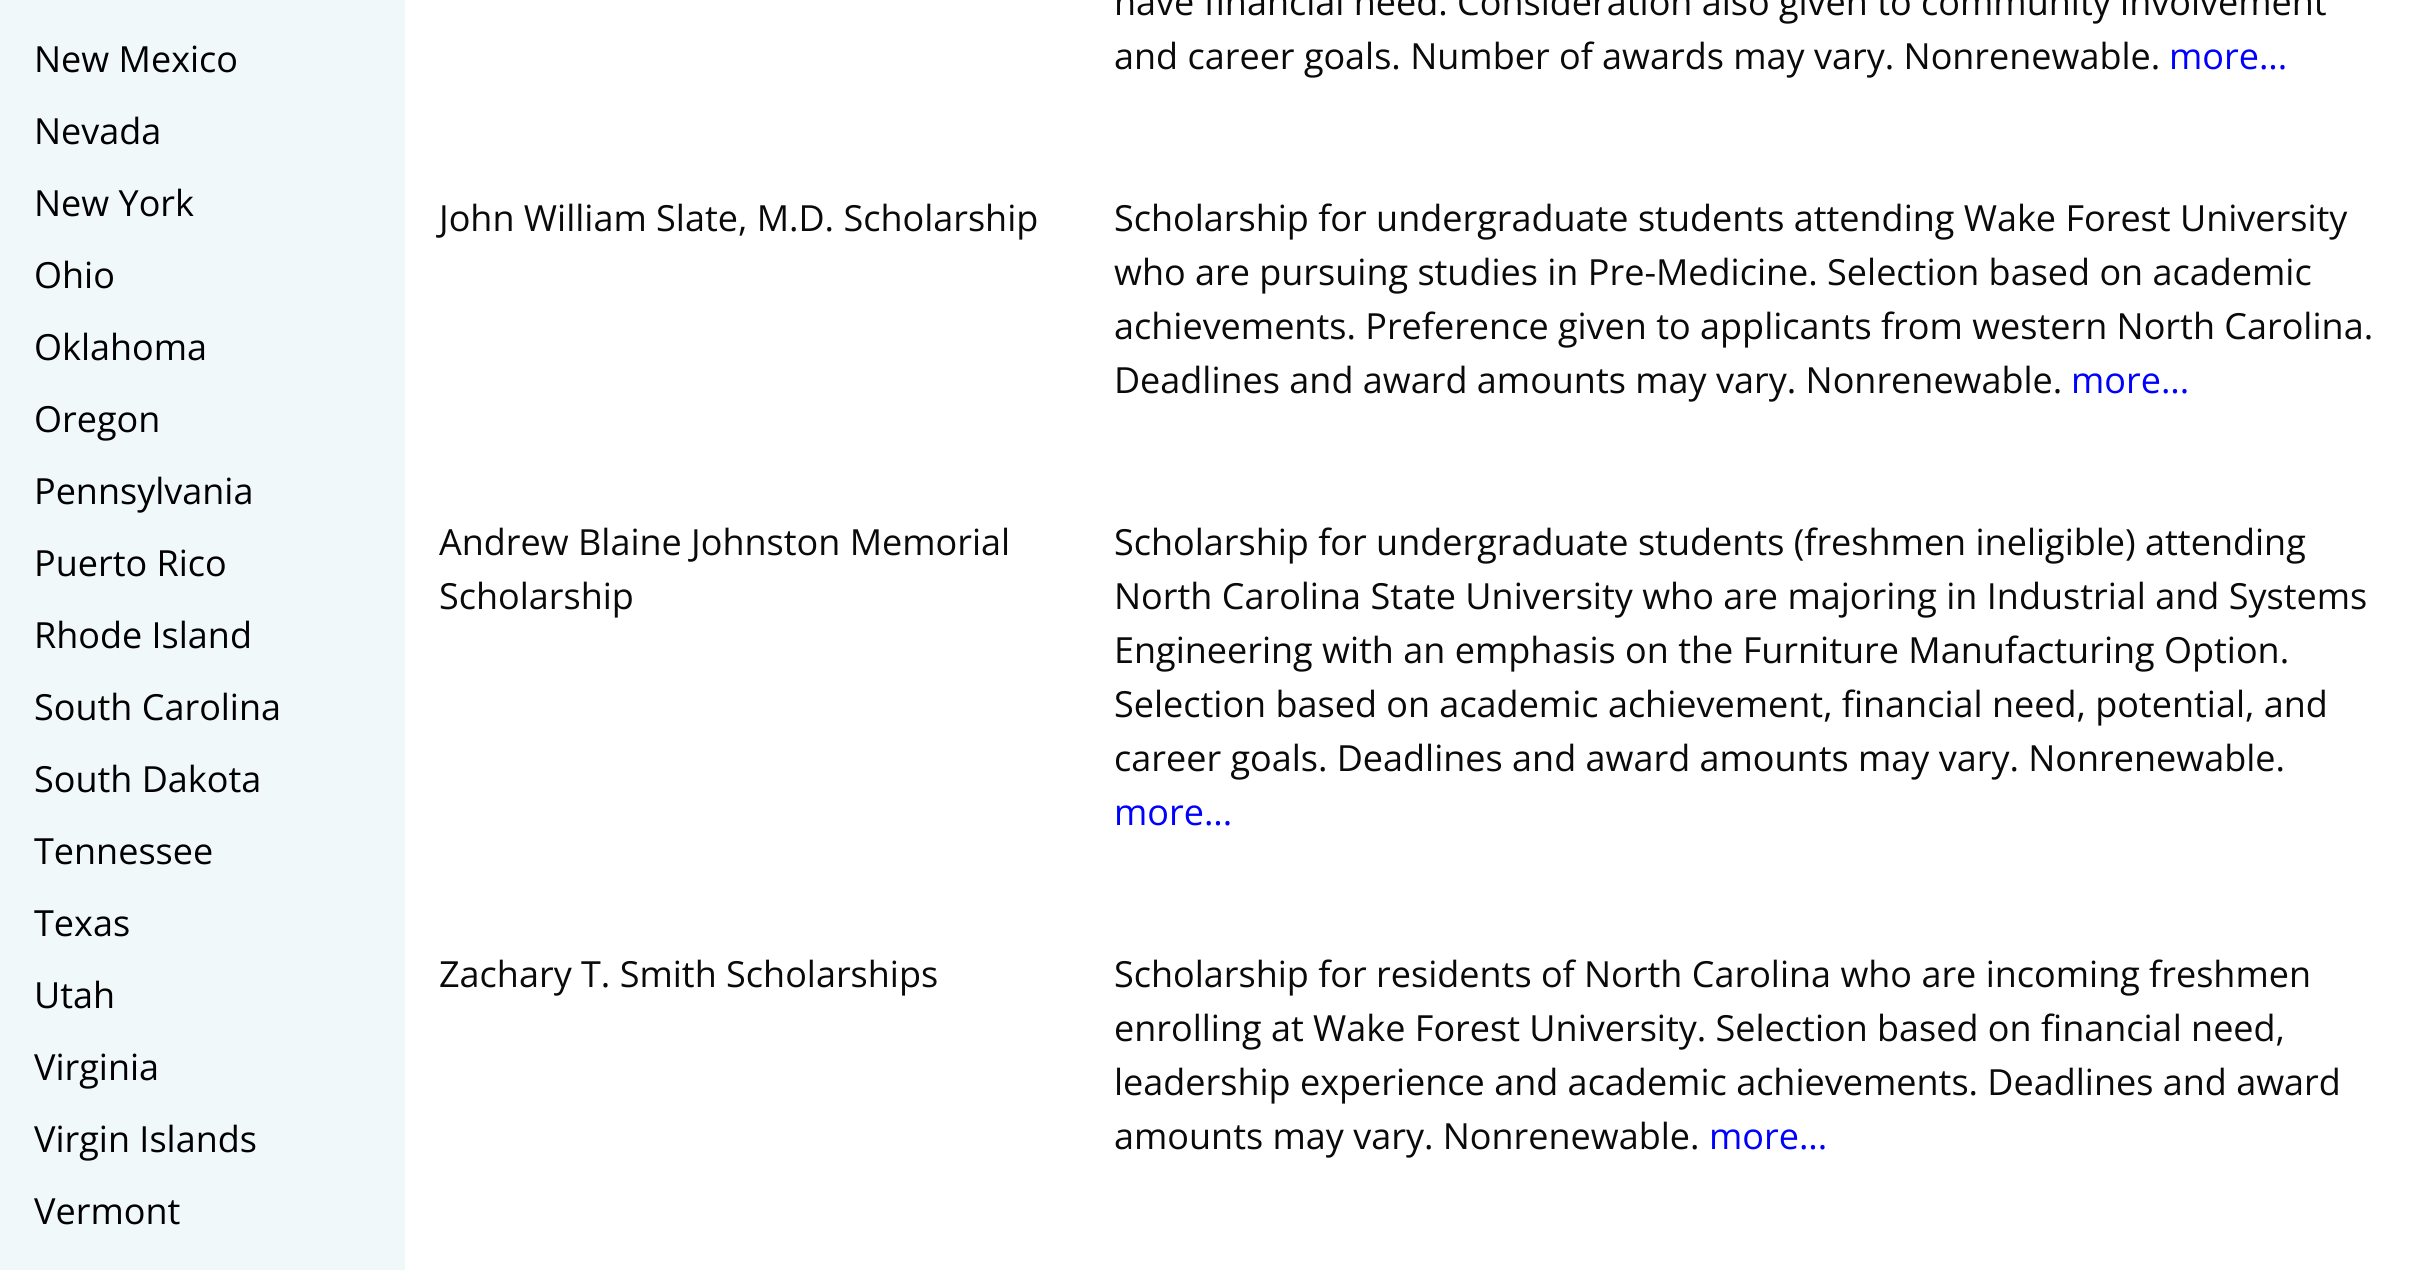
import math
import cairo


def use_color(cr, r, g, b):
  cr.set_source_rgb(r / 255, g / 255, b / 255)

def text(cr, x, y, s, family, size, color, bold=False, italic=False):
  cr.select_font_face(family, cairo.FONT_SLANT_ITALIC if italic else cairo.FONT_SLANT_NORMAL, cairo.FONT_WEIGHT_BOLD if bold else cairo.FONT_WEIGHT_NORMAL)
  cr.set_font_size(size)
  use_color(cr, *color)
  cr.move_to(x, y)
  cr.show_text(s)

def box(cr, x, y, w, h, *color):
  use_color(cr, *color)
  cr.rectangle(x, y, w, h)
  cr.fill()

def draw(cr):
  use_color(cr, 255, 255, 255)
  cr.paint()
  box(cr, 0, 0, 405, 1270, 241, 248, 250)
  text(cr, 34, 72, "New Mexico", "Open Sans", 36, (0, 0, 0))
  text(cr, 34, 144, "Nevada", "Open Sans", 36, (0, 0, 0))
  text(cr, 34, 216, "New York", "Open Sans", 36, (0, 0, 0))
  text(cr, 34, 288, "Ohio", "Open Sans", 36, (0, 0, 0))
  text(cr, 34, 360, "Oklahoma", "Open Sans", 36, (0, 0, 0))
  text(cr, 34, 432, "Oregon", "Open Sans", 36, (0, 0, 0))
  text(cr, 34, 504, "Pennsylvania", "Open Sans", 36, (0, 0, 0))
  text(cr, 34, 576, "Puerto Rico", "Open Sans", 36, (0, 0, 0))
  text(cr, 34, 648, "Rhode Island", "Open Sans", 36, (0, 0, 0))
  text(cr, 34, 720, "South Carolina", "Open Sans", 36, (0, 0, 0))
  text(cr, 34, 792, "South Dakota", "Open Sans", 36, (0, 0, 0))
  text(cr, 34, 864, "Tennessee", "Open Sans", 36, (0, 0, 0))
  text(cr, 34, 936, "Texas", "Open Sans", 36, (0, 0, 0))
  text(cr, 34, 1008, "Utah", "Open Sans", 36, (0, 0, 0))
  text(cr, 34, 1080, "Virginia", "Open Sans", 36, (0, 0, 0))
  text(cr, 34, 1152, "Virgin Islands", "Open Sans", 36, (0, 0, 0))
  text(cr, 34, 1224, "Vermont", "Open Sans", 36, (0, 0, 0))
  text(cr, 1114, 15, "have financial need. Consideration also given to community involvement", "Open Sans", 36, (10, 10, 10))
  text(cr, 1114, 69, "and career goals. Number of awards may vary. Nonrenewable.", "Open Sans", 36, (10, 10, 10))
  text(cr, 2169, 69, "more...", "Open Sans", 36, (0, 0, 255))
  text(cr, 439, 231, "John William Slate, M.D. Scholarship", "Open Sans", 36, (10, 10, 10))
  text(cr, 1114, 231, "Scholarship for undergraduate students attending Wake Forest University", "Open Sans", 36, (10, 10, 10))
  text(cr, 1114, 285, "who are pursuing studies in Pre-Medicine. Selection based on academic", "Open Sans", 36, (10, 10, 10))
  text(cr, 1114, 339, "achievements. Preference given to applicants from western North Carolina.", "Open Sans", 36, (10, 10, 10))
  text(cr, 1114, 393, "Deadlines and award amounts may vary. Nonrenewable.", "Open Sans", 36, (10, 10, 10))
  text(cr, 2071, 393, "more...", "Open Sans", 36, (0, 0, 255))
  text(cr, 439, 555, "Andrew Blaine Johnston Memorial", "Open Sans", 36, (10, 10, 10))
  text(cr, 439, 609, "Scholarship", "Open Sans", 36, (10, 10, 10))
  text(cr, 1114, 555, "Scholarship for undergraduate students (freshmen ineligible) attending", "Open Sans", 36, (10, 10, 10))
  text(cr, 1114, 609, "North Carolina State University who are majoring in Industrial and Systems", "Open Sans", 36, (10, 10, 10))
  text(cr, 1114, 663, "Engineering with an emphasis on the Furniture Manufacturing Option.", "Open Sans", 36, (10, 10, 10))
  text(cr, 1114, 717, "Selection based on academic achievement, financial need, potential, and", "Open Sans", 36, (10, 10, 10))
  text(cr, 1114, 771, "career goals. Deadlines and award amounts may vary. Nonrenewable.", "Open Sans", 36, (10, 10, 10))
  text(cr, 1114, 825, "more...", "Open Sans", 36, (0, 0, 255))
  text(cr, 439, 987, "Zachary T. Smith Scholarships", "Open Sans", 36, (10, 10, 10))
  text(cr, 1114, 987, "Scholarship for residents of North Carolina who are incoming freshmen", "Open Sans", 36, (10, 10, 10))
  text(cr, 1114, 1041, "enrolling at Wake Forest University. Selection based on financial need,", "Open Sans", 36, (10, 10, 10))
  text(cr, 1114, 1095, "leadership experience and academic achievements. Deadlines and award", "Open Sans", 36, (10, 10, 10))
  text(cr, 1114, 1149, "amounts may vary. Nonrenewable.", "Open Sans", 36, (10, 10, 10))
  text(cr, 1709, 1149, "more...", "Open Sans", 36, (0, 0, 255))


surface = cairo.ImageSurface(cairo.FORMAT_RGB24, 2429, 1270)
cr = cairo.Context(surface)
options = cairo.FontOptions()
options.set_hint_metrics(cairo.HINT_METRICS_OFF)
options.set_hint_style(cairo.HINT_STYLE_NONE)
cr.set_font_options(options)
cr.set_miter_limit(4)
draw(cr)
surface.write_to_png("out.png")
